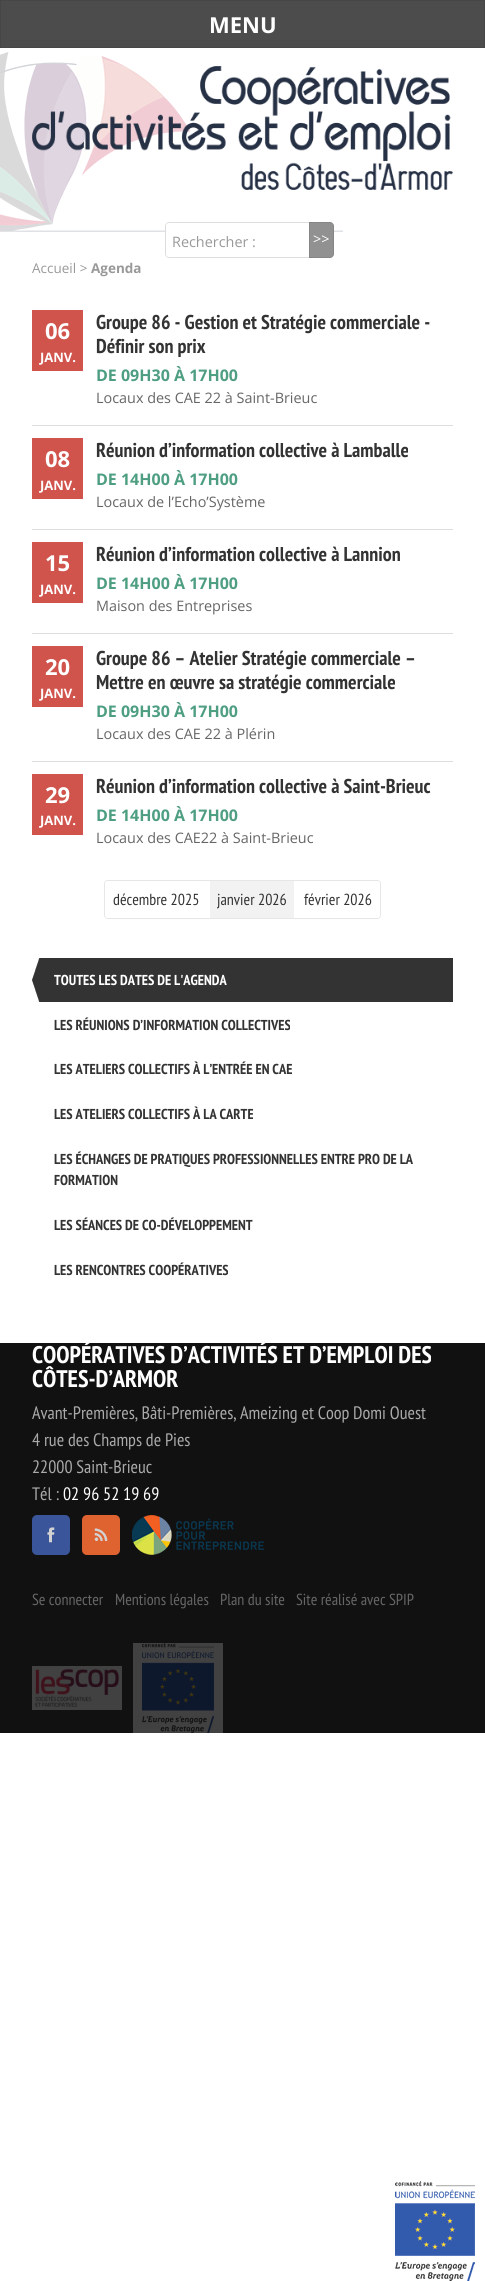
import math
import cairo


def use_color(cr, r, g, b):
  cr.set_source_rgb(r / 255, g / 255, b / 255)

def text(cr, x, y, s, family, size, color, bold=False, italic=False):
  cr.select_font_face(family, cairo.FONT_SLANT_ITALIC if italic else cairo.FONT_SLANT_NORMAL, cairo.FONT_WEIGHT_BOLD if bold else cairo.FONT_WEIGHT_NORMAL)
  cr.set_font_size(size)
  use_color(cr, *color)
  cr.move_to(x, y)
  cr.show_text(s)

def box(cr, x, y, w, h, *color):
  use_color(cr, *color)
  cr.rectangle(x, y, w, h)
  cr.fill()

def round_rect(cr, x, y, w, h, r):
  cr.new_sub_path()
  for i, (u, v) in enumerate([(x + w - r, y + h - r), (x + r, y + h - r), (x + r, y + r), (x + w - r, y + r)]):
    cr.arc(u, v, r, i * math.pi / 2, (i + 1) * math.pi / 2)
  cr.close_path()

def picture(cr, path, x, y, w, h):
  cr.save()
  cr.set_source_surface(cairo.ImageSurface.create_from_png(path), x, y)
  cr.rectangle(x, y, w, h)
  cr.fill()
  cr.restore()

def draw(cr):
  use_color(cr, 255, 255, 255)
  cr.paint()
  use_color(cr, 76, 76, 76)
  cr.rectangle(0.5, 0.5, 484, 47)
  cr.fill_preserve()
  use_color(cr, 70, 70, 70)
  cr.set_line_width(1)
  cr.stroke()
  picture(cr, "img_01.png", 0, 52, 343, 180)
  picture(cr, "img_02.png", 32, 66, 421, 124)
  use_color(cr, 255, 255, 255)
  cr.new_path()
  cr.move_to(169, 222)
  cr.line_to(309, 222)
  cr.line_to(309, 258)
  cr.line_to(169, 258)
  cr.curve_to(167, 258, 165, 256, 165, 254)
  cr.line_to(165, 226)
  cr.curve_to(165, 224, 167, 222, 169, 222)
  cr.close_path()
  cr.fill()
  use_color(cr, 221, 221, 221)
  cr.set_fill_rule(cairo.FILL_RULE_EVEN_ODD)
  cr.new_path()
  cr.move_to(169, 222)
  cr.line_to(309, 222)
  cr.line_to(309, 258)
  cr.line_to(169, 258)
  cr.curve_to(167, 258, 165, 256, 165, 254)
  cr.line_to(165, 226)
  cr.curve_to(165, 224, 167, 222, 169, 222)
  cr.close_path()
  cr.move_to(169, 223)
  cr.line_to(309, 223)
  cr.line_to(309, 257)
  cr.line_to(169, 257)
  cr.curve_to(167, 257, 166, 256, 166, 254)
  cr.line_to(166, 226)
  cr.curve_to(166, 224, 167, 223, 169, 223)
  cr.close_path()
  cr.fill()
  use_color(cr, 145, 145, 145)
  cr.new_path()
  cr.move_to(309, 222)
  cr.line_to(330, 222)
  cr.curve_to(332, 222, 334, 224, 334, 226)
  cr.line_to(334, 254)
  cr.curve_to(334, 256, 332, 258, 330, 258)
  cr.line_to(309, 258)
  cr.close_path()
  cr.fill()
  cr.new_path()
  cr.move_to(309.5, 222.5)
  cr.line_to(330, 222.5)
  cr.curve_to(332, 222.5, 333.5, 224, 333.5, 226)
  cr.line_to(333.5, 254)
  cr.curve_to(333.5, 256, 332, 257.5, 330, 257.5)
  cr.line_to(309.5, 257.5)
  cr.close_path()
  cr.set_source_rgba(0, 0, 0, 0.08)
  cr.stroke()
  box(cr, 32, 310, 51, 61, 208, 84, 76)
  box(cr, 32, 425, 421, 1, 221, 221, 221)
  box(cr, 32, 438, 51, 61, 208, 84, 76)
  box(cr, 32, 529, 421, 1, 221, 221, 221)
  box(cr, 32, 542, 51, 61, 208, 84, 76)
  box(cr, 32, 633, 421, 1, 221, 221, 221)
  box(cr, 32, 646, 51, 61, 208, 84, 76)
  box(cr, 32, 761, 421, 1, 221, 221, 221)
  box(cr, 32, 774, 51, 61, 208, 84, 76)
  round_rect(cr, 104.5, 880.5, 276, 38, 3.5)
  use_color(cr, 230, 230, 230)
  cr.stroke()
  use_color(cr, 255, 255, 255)
  round_rect(cr, 105, 881, 275, 37, 3)
  cr.fill()
  box(cr, 210, 881, 84, 37, 242, 242, 242)
  box(cr, 40, 958, 413, 44, 51, 51, 51)
  picture(cr, "img_03.png", 32, 958, 8, 44)
  box(cr, 0, 1343, 485, 390, 17, 17, 17)
  use_color(cr, 58, 85, 154)
  round_rect(cr, 32, 1515, 38, 40, 5)
  cr.fill()
  picture(cr, "img_04.png", 47, 1527, 8, 16)
  use_color(cr, 223, 98, 49)
  round_rect(cr, 82, 1515, 38, 40, 5)
  cr.fill()
  picture(cr, "img_05.png", 94, 1528, 14, 13)
  picture(cr, "img_06.png", 132, 1515, 132, 40)
  picture(cr, "img_07.png", 32, 1666, 90, 44)
  picture(cr, "img_08.png", 133, 1643, 90, 90)
  picture(cr, "img_09.png", 395, 2181, 80, 100)
  text(cr, 209, 33, "MENU", "Open Sans", 22, (255, 255, 255), bold=True)
  text(cr, 313, 244, ">>", "Open Sans", 14.4, (255, 255, 255))
  text(cr, 172, 247, "Rechercher :", "Open Sans", 14.4, (153, 153, 153))
  text(cr, 32, 273, "Accueil >", "Open Sans", 13.5, (153, 153, 153))
  text(cr, 91, 273, "Agenda", "Open Sans", 13.5, (153, 153, 153), bold=True)
  text(cr, 45, 339, "06", "Open Sans", 22, (255, 255, 255), bold=True)
  text(cr, 40, 362, "JANV.", "Open Sans", 13, (255, 255, 255), bold=True)
  text(cr, 96, 329, "Groupe 86 - Gestion et Stratégie commerciale -", "PT Sans Narrow", 20, (51, 51, 51), bold=True)
  text(cr, 96, 353, "Définir son prix", "PT Sans Narrow", 20, (51, 51, 51), bold=True)
  text(cr, 96, 381, "DE 09H30 À 17H00", "Open Sans", 16, (78, 158, 129), bold=True)
  text(cr, 96, 403, "Locaux des CAE 22 à Saint-Brieuc", "Open Sans", 14.4, (102, 102, 102))
  text(cr, 45, 467, "08", "Open Sans", 22, (255, 255, 255), bold=True)
  text(cr, 40, 490, "JANV.", "Open Sans", 13, (255, 255, 255), bold=True)
  text(cr, 96, 457, "Réunion d’information collective à Lamballe", "PT Sans Narrow", 20, (51, 51, 51), bold=True)
  text(cr, 96, 485, "DE 14H00 À 17H00", "Open Sans", 16, (78, 158, 129), bold=True)
  text(cr, 96, 507, "Locaux de l’Echo’Système", "Open Sans", 14.4, (102, 102, 102))
  text(cr, 45, 571, "15", "Open Sans", 22, (255, 255, 255), bold=True)
  text(cr, 40, 594, "JANV.", "Open Sans", 13, (255, 255, 255), bold=True)
  text(cr, 96, 561, "Réunion d’information collective à Lannion", "PT Sans Narrow", 20, (51, 51, 51), bold=True)
  text(cr, 96, 589, "DE 14H00 À 17H00", "Open Sans", 16, (78, 158, 129), bold=True)
  text(cr, 96, 611, "Maison des Entreprises", "Open Sans", 14.4, (102, 102, 102))
  text(cr, 45, 675, "20", "Open Sans", 22, (255, 255, 255), bold=True)
  text(cr, 40, 698, "JANV.", "Open Sans", 13, (255, 255, 255), bold=True)
  text(cr, 96, 665, "Groupe 86 – Atelier Stratégie commerciale –", "PT Sans Narrow", 20, (51, 51, 51), bold=True)
  text(cr, 96, 689, "Mettre en œuvre sa stratégie commerciale", "PT Sans Narrow", 20, (51, 51, 51), bold=True)
  text(cr, 96, 717, "DE 09H30 À 17H00", "Open Sans", 16, (78, 158, 129), bold=True)
  text(cr, 96, 739, "Locaux des CAE 22 à Plérin", "Open Sans", 14.4, (102, 102, 102))
  text(cr, 45, 803, "29", "Open Sans", 22, (255, 255, 255), bold=True)
  text(cr, 40, 825, "JANV.", "Open Sans", 13, (255, 255, 255), bold=True)
  text(cr, 96, 793, "Réunion d’information collective à Saint-Brieuc", "PT Sans Narrow", 20, (51, 51, 51), bold=True)
  text(cr, 96, 821, "DE 14H00 À 17H00", "Open Sans", 16, (78, 158, 129), bold=True)
  text(cr, 96, 843, "Locaux des CAE22 à Saint-Brieuc", "Open Sans", 14.4, (102, 102, 102))
  text(cr, 113, 905, "décembre 2025", "PT Sans Narrow", 16, (51, 51, 51))
  text(cr, 217, 905, "janvier 2026", "PT Sans Narrow", 16, (51, 51, 51))
  text(cr, 304, 905, "février 2026", "PT Sans Narrow", 16, (51, 51, 51))
  text(cr, 54, 985, "TOUTES LES DATES DE L'AGENDA", "PT Sans Narrow", 14.4, (255, 255, 255), bold=True)
  text(cr, 54, 1030, "LES RÉUNIONS D’INFORMATION COLLECTIVES", "PT Sans Narrow", 14.4, (51, 51, 51), bold=True)
  text(cr, 54, 1074, "LES ATELIERS COLLECTIFS À L’ENTRÉE EN CAE", "PT Sans Narrow", 14.4, (51, 51, 51), bold=True)
  text(cr, 54, 1119, "LES ATELIERS COLLECTIFS À LA CARTE", "PT Sans Narrow", 14.4, (51, 51, 51), bold=True)
  text(cr, 54, 1164, "LES ÉCHANGES DE PRATIQUES PROFESSIONNELLES ENTRE PRO DE LA", "PT Sans Narrow", 14.4, (51, 51, 51), bold=True)
  text(cr, 54, 1185, "FORMATION", "PT Sans Narrow", 14.4, (51, 51, 51), bold=True)
  text(cr, 54, 1230, "LES SÉANCES DE CO-DÉVELOPPEMENT", "PT Sans Narrow", 14.4, (51, 51, 51), bold=True)
  text(cr, 54, 1275, "LES RENCONTRES COOPÉRATIVES", "PT Sans Narrow", 14.4, (51, 51, 51), bold=True)
  cr.save()
  cr.set_fill_rule(cairo.FILL_RULE_WINDING)
  cr.rectangle(0, 1343, 485, 390)
  cr.clip()
  text(cr, 32, 1363, "COOPÉRATIVES D’ACTIVITÉS ET D’EMPLOI DES", "PT Sans Narrow", 24, (255, 255, 255), bold=True)
  cr.restore()
  text(cr, 32, 1387, "CÔTES-D’ARMOR", "PT Sans Narrow", 24, (255, 255, 255), bold=True)
  text(cr, 32, 1419, "Avant-Premières, Bâti-Premières, Ameizing et Coop Domi Ouest", "PT Sans Narrow", 18, (170, 170, 170))
  text(cr, 32, 1446, "4 rue des Champs de Pies", "PT Sans Narrow", 18, (170, 170, 170))
  text(cr, 32, 1473, "22000 Saint-Brieuc", "PT Sans Narrow", 18, (170, 170, 170))
  text(cr, 32, 1500, "Tél :", "PT Sans Narrow", 18, (170, 170, 170))
  text(cr, 63, 1500, "02 96 52 19 69", "PT Sans Narrow", 18, (255, 255, 255))
  text(cr, 32, 1605, "Se connecter", "PT Sans Narrow", 16, (102, 102, 102))
  text(cr, 115, 1605, "Mentions légales", "PT Sans Narrow", 16, (102, 102, 102))
  text(cr, 220, 1605, "Plan du site", "PT Sans Narrow", 16, (102, 102, 102))
  text(cr, 296, 1605, "Site réalisé avec SPIP", "PT Sans Narrow", 16, (102, 102, 102))


surface = cairo.ImageSurface(cairo.FORMAT_RGB24, 485, 2281)
cr = cairo.Context(surface)
options = cairo.FontOptions()
options.set_hint_metrics(cairo.HINT_METRICS_OFF)
options.set_hint_style(cairo.HINT_STYLE_NONE)
cr.set_font_options(options)
cr.set_miter_limit(4)
draw(cr)
surface.write_to_png("out.png")
